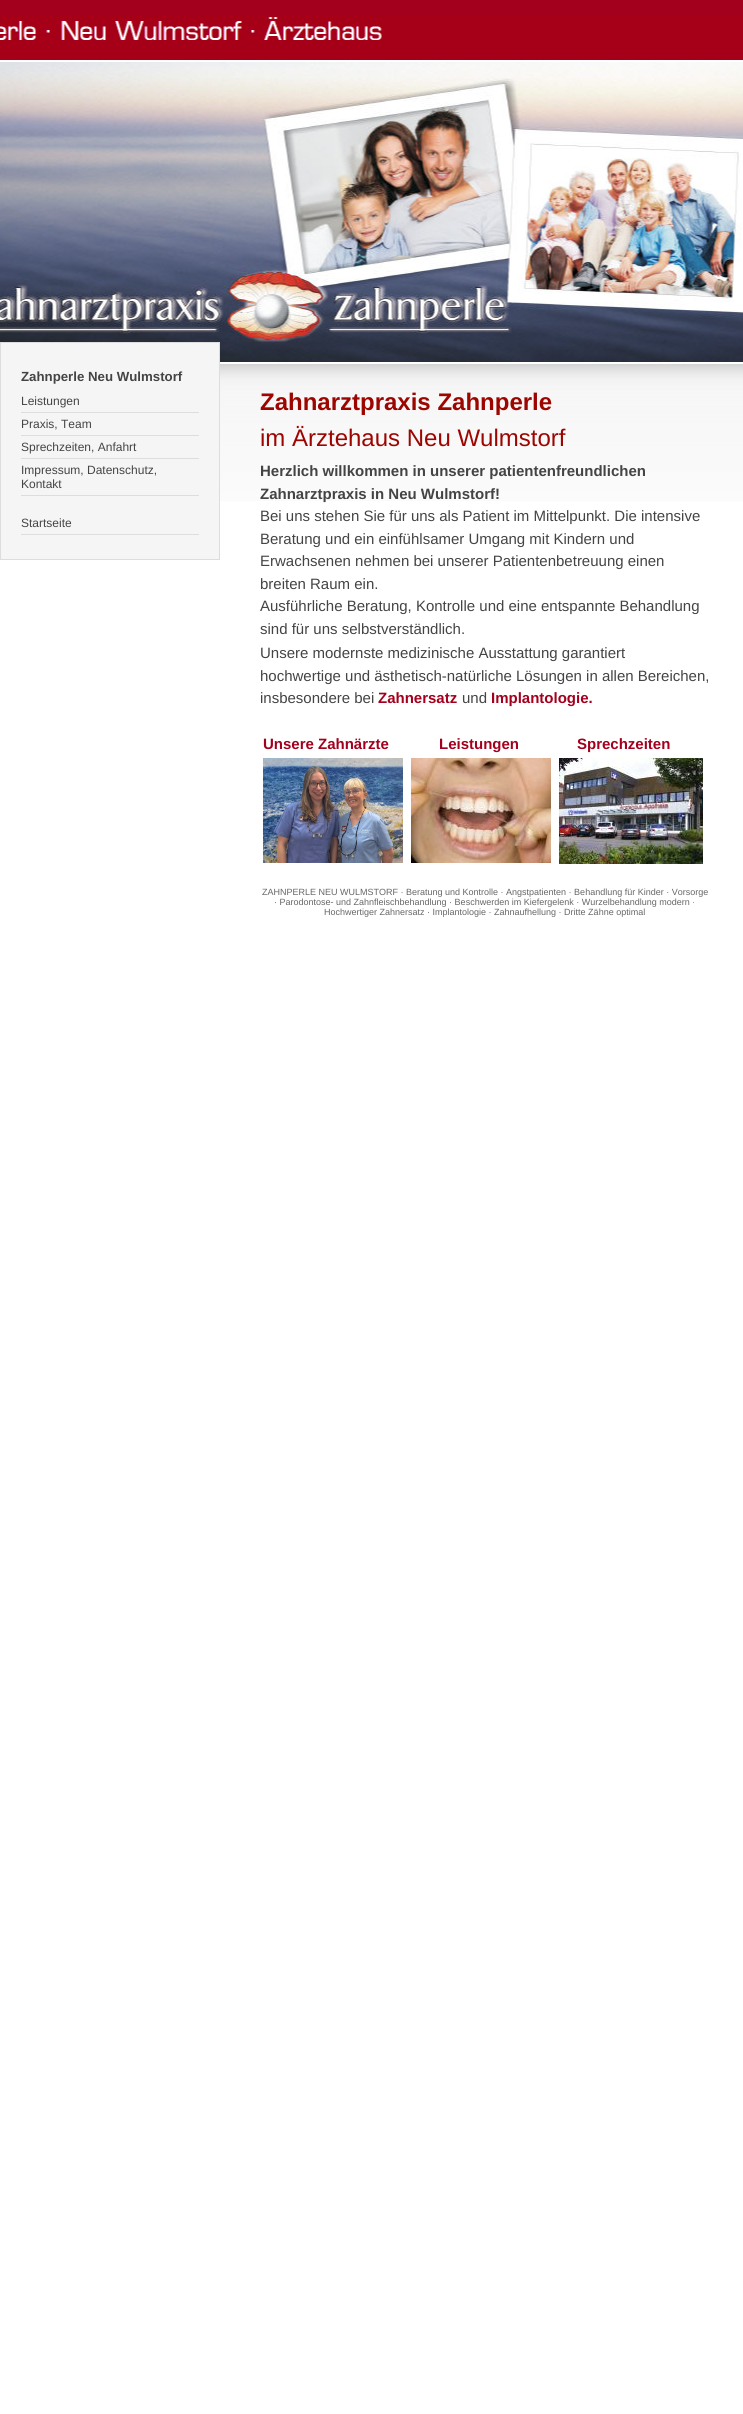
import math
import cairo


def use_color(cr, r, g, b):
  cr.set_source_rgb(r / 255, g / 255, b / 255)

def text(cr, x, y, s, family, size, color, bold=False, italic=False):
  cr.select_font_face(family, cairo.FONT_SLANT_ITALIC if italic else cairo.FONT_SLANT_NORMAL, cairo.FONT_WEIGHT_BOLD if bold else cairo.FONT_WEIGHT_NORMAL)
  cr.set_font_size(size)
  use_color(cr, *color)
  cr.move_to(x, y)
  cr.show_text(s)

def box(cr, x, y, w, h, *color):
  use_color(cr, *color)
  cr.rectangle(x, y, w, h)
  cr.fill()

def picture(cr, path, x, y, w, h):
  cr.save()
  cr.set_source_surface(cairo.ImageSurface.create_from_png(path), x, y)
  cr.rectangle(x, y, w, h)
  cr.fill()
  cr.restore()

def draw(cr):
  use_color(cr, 255, 255, 255)
  cr.paint()
  picture(cr, "img_01.png", 220, 364, 523, 137)
  box(cr, 0, 0, 743, 16, 163, 0, 30)
  picture(cr, "img_02.png", 0, 16, 743, 44)
  picture(cr, "img_03.png", 0, 62, 743, 300)
  use_color(cr, 245, 245, 245)
  cr.rectangle(0.5, 342.5, 219, 217)
  cr.fill_preserve()
  use_color(cr, 221, 221, 221)
  cr.set_line_width(1)
  cr.stroke()
  box(cr, 21, 412, 178, 1, 221, 221, 221)
  box(cr, 21, 435, 178, 1, 221, 221, 221)
  box(cr, 21, 458, 178, 1, 221, 221, 221)
  box(cr, 21, 495, 178, 1, 221, 221, 221)
  box(cr, 21, 534, 178, 1, 221, 221, 221)
  picture(cr, "img_04.png", 263, 758, 140, 105)
  picture(cr, "img_05.png", 411, 758, 140, 105)
  picture(cr, "img_06.png", 559, 758, 144, 106)
  text(cr, 21, 381, "Zahnperle Neu Wulmstorf", "Liberation Sans", 13.25, (68, 68, 68), bold=True)
  text(cr, 21, 405, "Leistungen", "Liberation Sans", 12, (68, 68, 68))
  text(cr, 21, 428, "Praxis, Team", "Liberation Sans", 12, (68, 68, 68))
  text(cr, 21, 451, "Sprechzeiten, Anfahrt", "Liberation Sans", 12, (68, 68, 68))
  text(cr, 21, 474, "Impressum, Datenschutz,", "Liberation Sans", 12, (68, 68, 68))
  text(cr, 21, 488, "Kontakt", "Liberation Sans", 12, (68, 68, 68))
  text(cr, 21, 527, "Startseite", "Liberation Sans", 12, (68, 68, 68))
  text(cr, 260, 410, "Zahnarztpraxis Zahnperle", "Liberation Sans", 24, (157, 5, 0), bold=True)
  text(cr, 260, 446, "im Ärztehaus Neu Wulmstorf", "Liberation Sans", 24, (157, 5, 0))
  text(cr, 260, 476, "Herzlich willkommen in unserer patientenfreundlichen", "Liberation Sans", 15, (68, 68, 68), bold=True)
  text(cr, 260, 499, "Zahnarztpraxis in Neu Wulmstorf!", "Liberation Sans", 15, (68, 68, 68), bold=True)
  text(cr, 260, 521, "Bei uns stehen Sie für uns als Patient im Mittelpunkt. Die intensive", "Liberation Sans", 15, (68, 68, 68))
  text(cr, 260, 544, "Beratung und ein einfühlsamer Umgang mit Kindern und", "Liberation Sans", 15, (68, 68, 68))
  text(cr, 260, 566, "Erwachsenen nehmen bei unserer Patientenbetreuung einen", "Liberation Sans", 15, (68, 68, 68))
  text(cr, 260, 589, "breiten Raum ein.", "Liberation Sans", 15, (68, 68, 68))
  text(cr, 260, 611, "Ausführliche Beratung, Kontrolle und eine entspannte Behandlung", "Liberation Sans", 15, (68, 68, 68))
  text(cr, 260, 634, "sind für uns selbstverständlich.", "Liberation Sans", 15, (68, 68, 68))
  text(cr, 260, 658, "Unsere modernste medizinische Ausstattung garantiert", "Liberation Sans", 15, (68, 68, 68))
  text(cr, 260, 681, "hochwertige und ästhetisch-natürliche Lösungen in allen Bereichen,", "Liberation Sans", 15, (68, 68, 68))
  text(cr, 260, 703, "insbesondere bei", "Liberation Sans", 15, (68, 68, 68))
  text(cr, 378, 703, "Zahnersatz", "Liberation Sans", 15, (163, 0, 30), bold=True)
  text(cr, 462, 703, "und", "Liberation Sans", 15, (68, 68, 68))
  text(cr, 491, 703, "Implantologie.", "Liberation Sans", 15, (163, 0, 30), bold=True)
  text(cr, 263, 749, "Unsere Zahnärzte", "Liberation Sans", 15, (163, 0, 30), bold=True)
  text(cr, 439, 749, "Leistungen", "Liberation Sans", 15, (163, 0, 30), bold=True)
  text(cr, 577, 749, "Sprechzeiten", "Liberation Sans", 15, (163, 0, 30), bold=True)
  text(cr, 262, 895, "ZAHNPERLE NEU WULMSTORF · Beratung und Kontrolle · Angstpatienten · Behandlung für Kinder · Vorsorge", "Liberation Sans", 9, (102, 102, 102))
  text(cr, 274, 905, "· Parodontose- und Zahnfleischbehandlung · Beschwerden im Kiefergelenk · Wurzelbehandlung modern ·", "Liberation Sans", 9, (102, 102, 102))
  text(cr, 324, 915, "Hochwertiger Zahnersatz · Implantologie · Zahnaufhellung · Dritte Zähne optimal", "Liberation Sans", 9, (102, 102, 102))


surface = cairo.ImageSurface(cairo.FORMAT_RGB24, 743, 2414)
cr = cairo.Context(surface)
options = cairo.FontOptions()
options.set_hint_metrics(cairo.HINT_METRICS_OFF)
options.set_hint_style(cairo.HINT_STYLE_NONE)
cr.set_font_options(options)
cr.set_miter_limit(4)
draw(cr)
surface.write_to_png("out.png")
